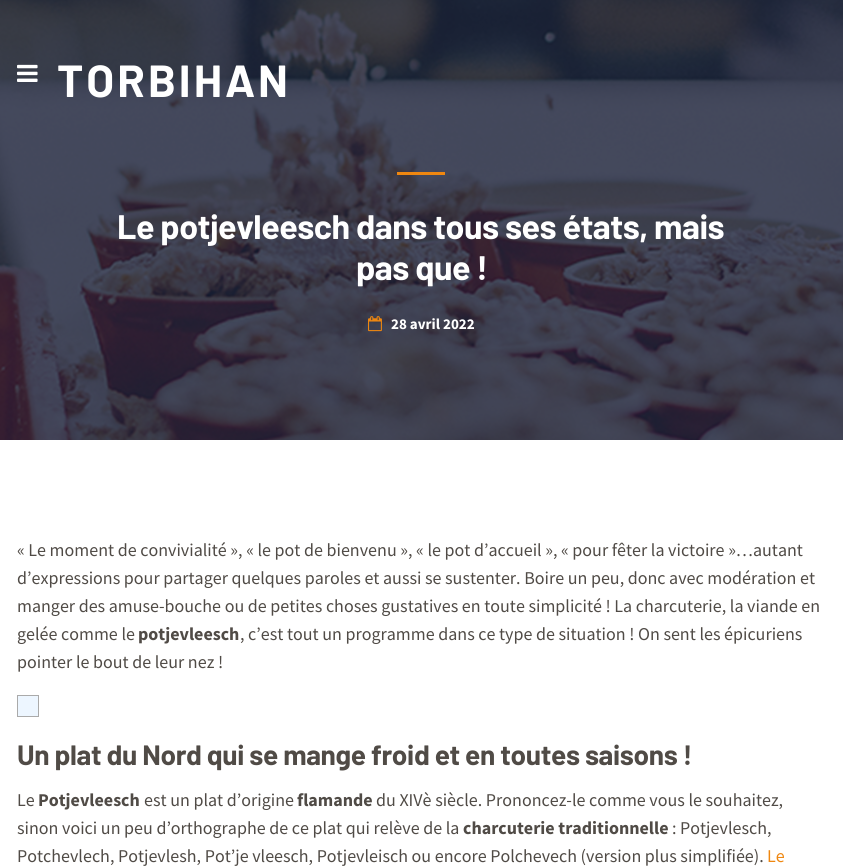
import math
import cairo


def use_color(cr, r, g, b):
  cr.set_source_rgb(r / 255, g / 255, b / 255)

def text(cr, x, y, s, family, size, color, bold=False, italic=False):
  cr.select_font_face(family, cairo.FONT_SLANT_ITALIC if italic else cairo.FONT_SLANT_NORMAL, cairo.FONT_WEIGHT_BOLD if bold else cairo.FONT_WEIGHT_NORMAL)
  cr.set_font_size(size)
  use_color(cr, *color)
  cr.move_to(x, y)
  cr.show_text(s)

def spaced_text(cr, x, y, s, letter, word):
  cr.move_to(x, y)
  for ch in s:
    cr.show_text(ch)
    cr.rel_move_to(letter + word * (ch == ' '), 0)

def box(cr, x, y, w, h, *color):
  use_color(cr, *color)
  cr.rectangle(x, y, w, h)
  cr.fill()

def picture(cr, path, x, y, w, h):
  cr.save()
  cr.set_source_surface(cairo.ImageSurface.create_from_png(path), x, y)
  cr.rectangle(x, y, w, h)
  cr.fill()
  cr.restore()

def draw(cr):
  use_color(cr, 255, 255, 255)
  cr.paint()
  picture(cr, "img_02.png", 0, 0, 843, 440)
  picture(cr, "img_01.png", 17, 64, 21, 18)
  box(cr, 397, 172, 48, 3, 239, 135, 16)
  picture(cr, "img_03.png", 368, 316, 14, 16)
  use_color(cr, 237, 246, 255)
  cr.rectangle(17.5, 695.5, 21, 21)
  cr.fill_preserve()
  use_color(cr, 170, 170, 170)
  cr.set_line_width(1)
  cr.stroke()
  cr.select_font_face("Barlow", cairo.FONT_SLANT_NORMAL, cairo.FONT_WEIGHT_BOLD)
  cr.set_font_size(45)
  use_color(cr, 255, 255, 255)
  spaced_text(cr, 57, 97, "TORBIHAN", 3, 0)
  cr.set_font_size(34)
  spaced_text(cr, 117, 239, "Le potjevleesch dans tous ses états, mais", -0.5, 0)
  spaced_text(cr, 356, 280, "pas que !", -0.5, 0)
  text(cr, 391, 329, "28 avril 2022", "Source Sans Pro", 15, (255, 255, 255), bold=True)
  text(cr, 17, 556, "« Le moment de convivialité », « le pot de bienvenu », « le pot d’accueil », « pour fêter la victoire »…autant", "Source Sans Pro", 18, (80, 75, 70))
  text(cr, 17, 584, "d’expressions pour partager quelques paroles et aussi se sustenter. Boire un peu, donc avec modération et", "Source Sans Pro", 18, (80, 75, 70))
  text(cr, 17, 612, "manger des amuse-bouche ou de petites choses gustatives en toute simplicité ! La charcuterie, la viande en", "Source Sans Pro", 18, (80, 75, 70))
  text(cr, 17, 640, "gelée comme le", "Source Sans Pro", 18, (80, 75, 70))
  text(cr, 138, 640, "potjevleesch", "Source Sans Pro", 18, (80, 75, 70), bold=True)
  text(cr, 240, 640, ", c’est tout un programme dans ce type de situation ! On sent les épicuriens", "Source Sans Pro", 18, (80, 75, 70))
  text(cr, 17, 668, "pointer le bout de leur nez !", "Source Sans Pro", 18, (80, 75, 70))
  cr.select_font_face("Barlow", cairo.FONT_SLANT_NORMAL, cairo.FONT_WEIGHT_BOLD)
  cr.set_font_size(28)
  spaced_text(cr, 17, 765, "Un plat du Nord qui se mange froid et en toutes saisons !", -0.35, 0)
  text(cr, 17, 806, "Le", "Source Sans Pro", 18, (80, 75, 70))
  text(cr, 38, 806, "Potjevleesch", "Source Sans Pro", 18, (80, 75, 70), bold=True)
  text(cr, 144, 806, "est un plat d’origine", "Source Sans Pro", 18, (80, 75, 70))
  text(cr, 297, 806, "flamande", "Source Sans Pro", 18, (80, 75, 70), bold=True)
  text(cr, 376, 806, "du XIVè siècle. Prononcez-le comme vous le souhaitez,", "Source Sans Pro", 18, (80, 75, 70))
  text(cr, 17, 834, "sinon voici un peu d’orthographe de ce plat qui relève de la", "Source Sans Pro", 18, (80, 75, 70))
  text(cr, 463, 834, "charcuterie traditionnelle", "Source Sans Pro", 18, (80, 75, 70), bold=True)
  text(cr, 672, 834, ": Potjevlesch,", "Source Sans Pro", 18, (80, 75, 70))
  text(cr, 17, 862, "Potchevlech, Potjevlesh, Pot’je vleesch, Potjevleisch ou encore Polchevech (version plus simplifiée).", "Source Sans Pro", 18, (80, 75, 70))
  text(cr, 767, 862, "Le", "Source Sans Pro", 18, (239, 135, 16))


surface = cairo.ImageSurface(cairo.FORMAT_RGB24, 843, 866)
cr = cairo.Context(surface)
options = cairo.FontOptions()
options.set_hint_metrics(cairo.HINT_METRICS_OFF)
options.set_hint_style(cairo.HINT_STYLE_NONE)
cr.set_font_options(options)
cr.set_miter_limit(4)
draw(cr)
surface.write_to_png("out.png")
